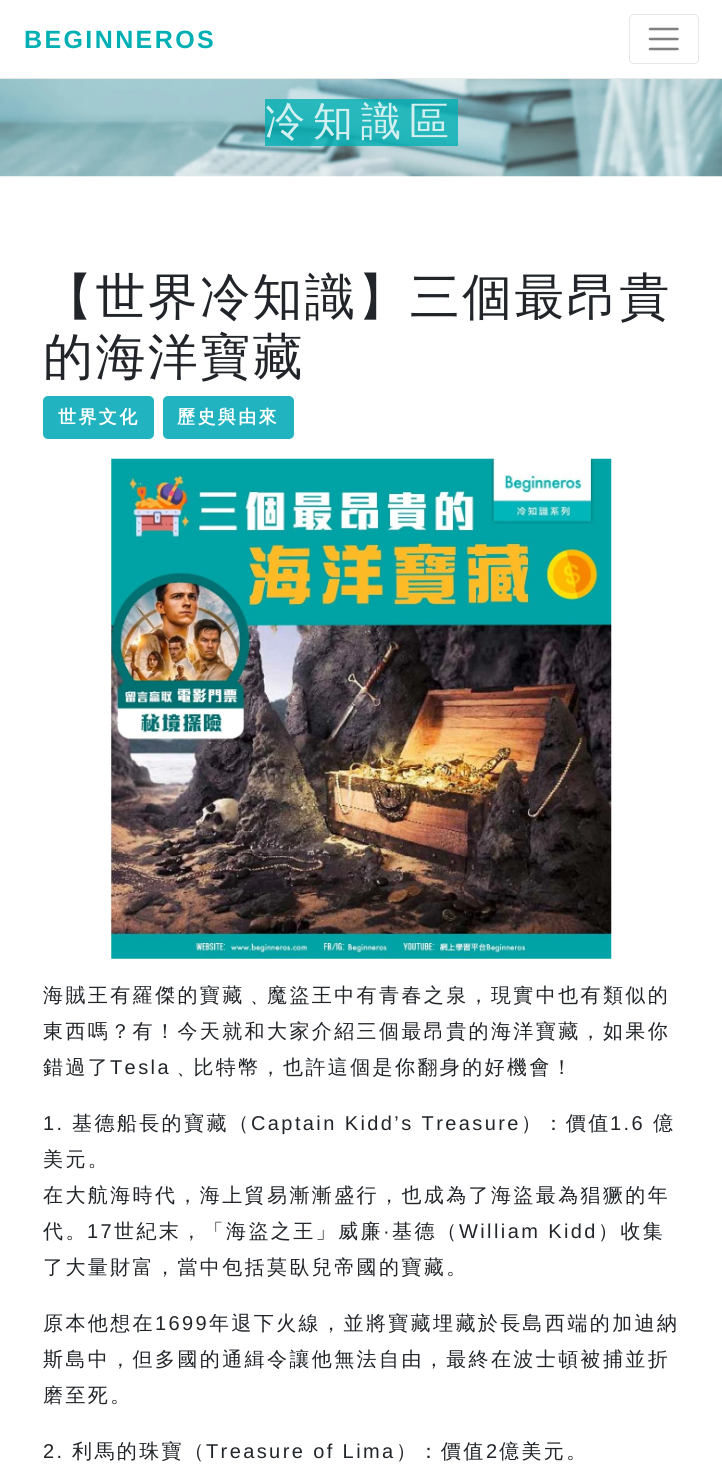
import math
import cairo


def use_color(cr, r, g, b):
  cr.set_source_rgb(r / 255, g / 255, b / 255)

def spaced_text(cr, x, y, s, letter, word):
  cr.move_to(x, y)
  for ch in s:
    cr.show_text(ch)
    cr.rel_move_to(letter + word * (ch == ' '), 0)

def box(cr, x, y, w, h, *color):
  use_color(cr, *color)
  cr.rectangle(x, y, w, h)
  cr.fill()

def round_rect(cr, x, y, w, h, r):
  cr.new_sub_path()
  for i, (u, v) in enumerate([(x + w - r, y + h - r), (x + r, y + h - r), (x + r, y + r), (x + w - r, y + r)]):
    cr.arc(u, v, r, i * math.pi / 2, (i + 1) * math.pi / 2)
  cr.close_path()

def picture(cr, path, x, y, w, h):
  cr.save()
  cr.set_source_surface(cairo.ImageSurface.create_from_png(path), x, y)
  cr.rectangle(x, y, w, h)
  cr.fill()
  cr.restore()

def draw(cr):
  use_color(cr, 255, 255, 255)
  cr.paint()
  box(cr, 0, 78, 722, 1, 233, 233, 234)
  round_rect(cr, 629.5, 14.5, 69, 49, 4.5)
  use_color(cr, 230, 230, 230)
  cr.set_line_width(1)
  cr.stroke()
  cr.new_path()
  cr.move_to(650, 29)
  cr.line_to(677.5, 29)
  cr.move_to(650, 39)
  cr.line_to(677.5, 39)
  cr.move_to(650, 49)
  cr.line_to(677.5, 49)
  use_color(cr, 128, 128, 128)
  cr.set_line_width(2.5)
  cr.set_line_cap(cairo.LINE_CAP_ROUND)
  cr.stroke()
  picture(cr, "img_01.png", 0, 79, 722, 98)
  cr.set_source_rgba(0, 0.686, 0.702, 0.8)
  cr.rectangle(265, 99, 193, 47)
  cr.fill()
  use_color(cr, 34, 179, 193)
  round_rect(cr, 43, 396, 111, 43, 5)
  cr.fill()
  round_rect(cr, 163, 396, 131, 43, 5)
  cr.fill()
  picture(cr, "img_02.png", 111, 458, 501, 501)
  cr.select_font_face("Liberation Sans", cairo.FONT_SLANT_NORMAL, cairo.FONT_WEIGHT_BOLD)
  cr.set_font_size(25)
  use_color(cr, 0, 175, 179)
  spaced_text(cr, 24, 48, "BEGINNEROS", 2.4, 0)
  cr.select_font_face("WenQuanYi Zen Hei Medium")
  cr.set_font_size(40)
  use_color(cr, 211, 240, 241)
  spaced_text(cr, 265, 135, "冷知識區", 8, 0)
  cr.set_font_size(50)
  use_color(cr, 33, 37, 41)
  spaced_text(cr, 43, 314, "【世界冷知識】三個最昂貴", 2.4, 0)
  spaced_text(cr, 43, 374, "的海洋寶藏", 2.4, 0)
  cr.select_font_face("WenQuanYi Zen Hei", cairo.FONT_SLANT_NORMAL, cairo.FONT_WEIGHT_BOLD)
  cr.set_font_size(18)
  use_color(cr, 255, 255, 255)
  spaced_text(cr, 58, 423, "世界文化", 2.4, 0)
  spaced_text(cr, 177, 423, "歷史與由來", 2.4, 0)
  cr.select_font_face("WenQuanYi Zen Hei Medium")
  cr.set_font_size(20)
  use_color(cr, 33, 37, 41)
  spaced_text(cr, 43, 1002, "海賊王有羅傑的寶藏﹑魔盜王中有青春之泉，現實中也有類似的", 2.4, 0)
  spaced_text(cr, 43, 1038, "東西嗎？有！今天就和大家介紹三個最昂貴的海洋寶藏，如果你", 2.4, 0)
  spaced_text(cr, 43, 1074, "錯過了", 2.4, 0)
  cr.select_font_face("Liberation Sans")
  spaced_text(cr, 110, 1074, "Tesla", 2.4, 0)
  cr.select_font_face("WenQuanYi Zen Hei Medium")
  spaced_text(cr, 171, 1074, "﹑比特幣，也許這個是你翻身的好機會！", 2.4, 0)
  cr.select_font_face("Liberation Sans")
  spaced_text(cr, 43, 1130, "1.", 2.4, 0)
  cr.select_font_face("WenQuanYi Zen Hei Medium")
  spaced_text(cr, 72, 1130, "基德船長的寶藏（", 2.4, 0)
  cr.select_font_face("Liberation Sans")
  spaced_text(cr, 251, 1130, "Captain Kidd’s Treasure", 2.4, 0)
  cr.select_font_face("WenQuanYi Zen Hei Medium")
  spaced_text(cr, 521, 1130, "）：價值", 2.4, 0)
  cr.select_font_face("Liberation Sans")
  spaced_text(cr, 610, 1130, "1.6", 2.4, 0)
  cr.select_font_face("WenQuanYi Zen Hei Medium")
  spaced_text(cr, 653, 1130, "億", 2.4, 0)
  spaced_text(cr, 43, 1166, "美元。", 2.4, 0)
  spaced_text(cr, 43, 1202, "在大航海時代，海上貿易漸漸盛行，也成為了海盜最為猖獗的年", 2.4, 0)
  spaced_text(cr, 43, 1238, "代。", 2.4, 0)
  cr.select_font_face("Liberation Sans")
  spaced_text(cr, 87, 1238, "17", 2.4, 0)
  cr.select_font_face("WenQuanYi Zen Hei Medium")
  spaced_text(cr, 114, 1238, "世紀末，「海盜之王」威廉", 2.4, 0)
  cr.select_font_face("Liberation Sans")
  spaced_text(cr, 383, 1238, "·", 2.4, 0)
  cr.select_font_face("WenQuanYi Zen Hei Medium")
  spaced_text(cr, 392, 1238, "基德（", 2.4, 0)
  cr.select_font_face("Liberation Sans")
  spaced_text(cr, 459, 1238, "William Kidd", 2.4, 0)
  cr.select_font_face("WenQuanYi Zen Hei Medium")
  spaced_text(cr, 598, 1238, "）收集", 2.4, 0)
  spaced_text(cr, 43, 1274, "了大量財富，當中包括莫臥兒帝國的寶藏。", 2.4, 0)
  spaced_text(cr, 43, 1330, "原本他想在", 2.4, 0)
  cr.select_font_face("Liberation Sans")
  spaced_text(cr, 155, 1330, "1699", 2.4, 0)
  cr.select_font_face("WenQuanYi Zen Hei Medium")
  spaced_text(cr, 209, 1330, "年退下火線，並將寶藏埋藏於長島西端的加迪納", 2.4, 0)
  spaced_text(cr, 43, 1366, "斯島中，但多國的通緝令讓他無法自由，最終在波士頓被捕並折", 2.4, 0)
  spaced_text(cr, 43, 1402, "磨至死。", 2.4, 0)
  cr.select_font_face("Liberation Sans")
  spaced_text(cr, 43, 1458, "2.", 2.4, 0)
  cr.select_font_face("WenQuanYi Zen Hei Medium")
  spaced_text(cr, 72, 1458, "利馬的珠寶（", 2.4, 0)
  cr.select_font_face("Liberation Sans")
  spaced_text(cr, 206, 1458, "Treasure of Lima", 2.4, 0)
  cr.select_font_face("WenQuanYi Zen Hei Medium")
  spaced_text(cr, 396, 1458, "）：價值", 2.4, 0)
  cr.select_font_face("Liberation Sans")
  spaced_text(cr, 486, 1458, "2", 2.4, 0)
  cr.select_font_face("WenQuanYi Zen Hei Medium")
  spaced_text(cr, 499, 1458, "億美元。", 2.4, 0)


surface = cairo.ImageSurface(cairo.FORMAT_RGB24, 722, 1469)
cr = cairo.Context(surface)
options = cairo.FontOptions()
options.set_hint_metrics(cairo.HINT_METRICS_OFF)
options.set_hint_style(cairo.HINT_STYLE_NONE)
cr.set_font_options(options)
cr.set_miter_limit(4)
draw(cr)
surface.write_to_png("out.png")
